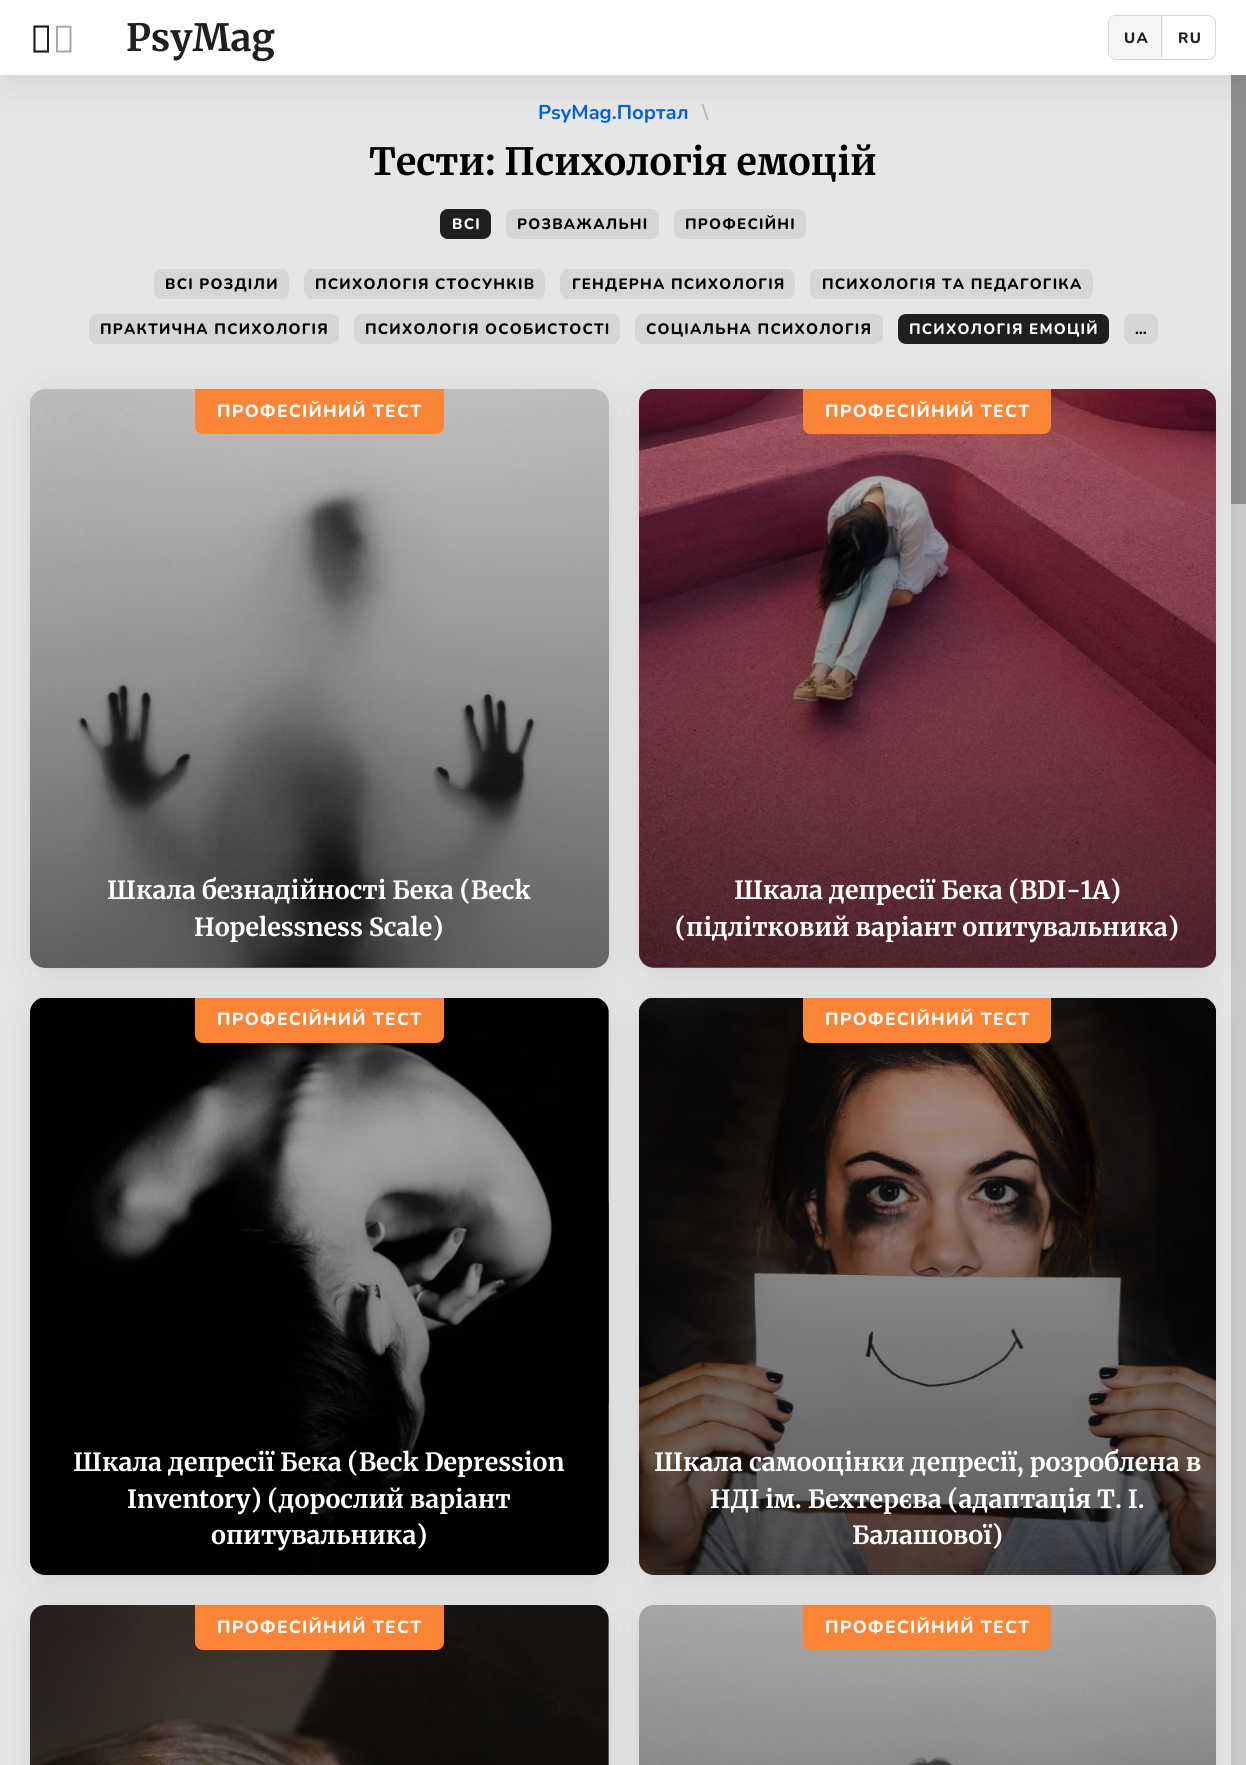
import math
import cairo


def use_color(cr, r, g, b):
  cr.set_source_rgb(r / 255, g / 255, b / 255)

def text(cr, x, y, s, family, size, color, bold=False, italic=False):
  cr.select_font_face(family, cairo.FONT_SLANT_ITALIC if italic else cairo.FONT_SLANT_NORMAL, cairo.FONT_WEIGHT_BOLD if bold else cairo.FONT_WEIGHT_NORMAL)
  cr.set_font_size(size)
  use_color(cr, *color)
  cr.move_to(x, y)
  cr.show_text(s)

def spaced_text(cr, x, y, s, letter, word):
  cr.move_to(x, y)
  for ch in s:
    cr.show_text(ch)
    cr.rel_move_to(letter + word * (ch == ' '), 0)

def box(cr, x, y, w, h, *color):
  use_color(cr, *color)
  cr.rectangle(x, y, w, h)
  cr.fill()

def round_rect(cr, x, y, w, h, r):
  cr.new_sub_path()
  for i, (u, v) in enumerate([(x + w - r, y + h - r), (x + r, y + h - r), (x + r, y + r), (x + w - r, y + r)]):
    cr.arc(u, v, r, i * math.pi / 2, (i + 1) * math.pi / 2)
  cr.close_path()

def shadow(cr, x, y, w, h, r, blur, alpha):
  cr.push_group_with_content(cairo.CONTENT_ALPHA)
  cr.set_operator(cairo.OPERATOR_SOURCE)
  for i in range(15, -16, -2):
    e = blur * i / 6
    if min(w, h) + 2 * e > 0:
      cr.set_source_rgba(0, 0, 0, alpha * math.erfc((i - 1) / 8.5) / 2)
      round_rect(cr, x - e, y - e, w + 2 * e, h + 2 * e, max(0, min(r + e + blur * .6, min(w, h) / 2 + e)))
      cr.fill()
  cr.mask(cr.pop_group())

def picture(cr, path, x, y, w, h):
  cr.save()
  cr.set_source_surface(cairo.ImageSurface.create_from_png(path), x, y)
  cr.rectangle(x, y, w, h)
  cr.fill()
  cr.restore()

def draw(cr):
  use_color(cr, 230, 230, 230)
  cr.paint()
  use_color(cr, 0, 0, 0)
  shadow(cr, 8, 15, 1231, 60, 0, 22.5, 0.12)
  box(cr, 0, 0, 1246, 75, 255, 255, 255)
  use_color(cr, 31, 31, 31)
  cr.new_path()
  cr.move_to(33.5, 52.5)
  cr.line_to(33.5, 25.5)
  cr.line_to(49, 25.5)
  cr.line_to(49, 52.5)
  cr.close_path()
  cr.move_to(35.5, 50.5)
  cr.line_to(47, 50.5)
  cr.line_to(47, 27.5)
  cr.line_to(35.5, 27.5)
  cr.close_path()
  cr.fill()
  picture(cr, "img_01.png", 33, 25, 39, 28)
  round_rect(cr, 1108.5, 15.5, 107, 44, 7.5)
  use_color(cr, 214, 214, 214)
  cr.set_line_width(1)
  cr.stroke()
  use_color(cr, 245, 245, 245)
  cr.new_path()
  cr.move_to(1115, 16)
  cr.line_to(1163, 16)
  cr.line_to(1163, 59)
  cr.line_to(1115, 59)
  cr.curve_to(1111.5, 59, 1109, 56.5, 1109, 53)
  cr.line_to(1109, 22)
  cr.curve_to(1109, 18.5, 1111.5, 16, 1115, 16)
  cr.close_path()
  cr.fill()
  box(cr, 1161, 16, 1, 43, 214, 214, 214)
  use_color(cr, 31, 31, 31)
  round_rect(cr, 440, 209, 51, 30, 8)
  cr.fill()
  use_color(cr, 214, 214, 214)
  round_rect(cr, 506, 209, 153, 30, 8)
  cr.fill()
  round_rect(cr, 674, 209, 132, 30, 8)
  cr.fill()
  round_rect(cr, 154, 269, 135, 30, 8)
  cr.fill()
  round_rect(cr, 304, 269, 241, 30, 8)
  cr.fill()
  round_rect(cr, 560, 269, 235, 30, 8)
  cr.fill()
  round_rect(cr, 810, 269, 283, 30, 8)
  cr.fill()
  round_rect(cr, 89, 314, 250, 30, 8)
  cr.fill()
  round_rect(cr, 354, 314, 266, 30, 8)
  cr.fill()
  round_rect(cr, 635, 314, 248, 30, 8)
  cr.fill()
  use_color(cr, 31, 31, 31)
  round_rect(cr, 898, 314, 211, 30, 8)
  cr.fill()
  use_color(cr, 214, 214, 214)
  round_rect(cr, 1124, 314, 34, 30, 8)
  cr.fill()
  use_color(cr, 0, 0, 0)
  shadow(cr, 38, 404, 563, 564, 8, 22.5, 0.12)
  use_color(cr, 255, 255, 255)
  round_rect(cr, 30, 389, 579, 579, 15)
  cr.fill()
  use_color(cr, 0, 0, 0)
  shadow(cr, 646, 404, 563, 564, 8, 22.5, 0.12)
  use_color(cr, 255, 255, 255)
  round_rect(cr, 639, 389, 577, 579, 15)
  cr.fill()
  use_color(cr, 0, 0, 0)
  shadow(cr, 38, 1013, 563, 562, 8, 22.5, 0.12)
  use_color(cr, 255, 255, 255)
  round_rect(cr, 30, 998, 579, 577, 15)
  cr.fill()
  use_color(cr, 0, 0, 0)
  shadow(cr, 646, 1013, 563, 562, 8, 22.5, 0.12)
  picture(cr, "img_02.png", 30, 389, 578, 579)
  gradient = cairo.LinearGradient(319, 968, 319, 389)
  gradient.add_color_stop_rgba(0, 0, 0, 0, 0.6)
  gradient.add_color_stop_rgba(0.5, 0, 0, 0, 0.42)
  gradient.add_color_stop_rgba(1, 0, 0, 0, 0.24)
  cr.set_source(gradient)
  round_rect(cr, 30, 389, 579, 579, 15)
  cr.fill()
  use_color(cr, 251, 133, 55)
  cr.new_path()
  cr.move_to(195, 389)
  cr.line_to(444, 389)
  cr.line_to(444, 426)
  cr.curve_to(444, 430.5, 440.5, 434, 436, 434)
  cr.line_to(203, 434)
  cr.curve_to(198.5, 434, 195, 430.5, 195, 426)
  cr.close_path()
  cr.fill()
  picture(cr, "img_03.png", 639, 389, 577, 579)
  gradient = cairo.LinearGradient(928, 968, 928, 389)
  gradient.add_color_stop_rgba(0, 0, 0, 0, 0.6)
  gradient.add_color_stop_rgba(0.5, 0, 0, 0, 0.42)
  gradient.add_color_stop_rgba(1, 0, 0, 0, 0.24)
  cr.set_source(gradient)
  round_rect(cr, 639, 389, 577, 579, 15)
  cr.fill()
  use_color(cr, 251, 133, 55)
  cr.new_path()
  cr.move_to(803, 389)
  cr.line_to(1051, 389)
  cr.line_to(1051, 426)
  cr.curve_to(1051, 430.5, 1047.5, 434, 1043, 434)
  cr.line_to(811, 434)
  cr.curve_to(806.5, 434, 803, 430.5, 803, 426)
  cr.close_path()
  cr.fill()
  use_color(cr, 255, 255, 255)
  round_rect(cr, 639, 998, 577, 577, 15)
  cr.fill()
  use_color(cr, 0, 0, 0)
  shadow(cr, 38, 1620, 563, 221, 8, 22.5, 0.12)
  use_color(cr, 255, 255, 255)
  cr.new_path()
  cr.move_to(45, 1605)
  cr.line_to(594, 1605)
  cr.curve_to(602.5, 1605, 609, 1611.5, 609, 1620)
  cr.line_to(609, 1765)
  cr.line_to(30, 1765)
  cr.line_to(30, 1620)
  cr.curve_to(30, 1611.5, 36.5, 1605, 45, 1605)
  cr.close_path()
  cr.fill()
  use_color(cr, 0, 0, 0)
  shadow(cr, 646, 1620, 563, 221, 8, 22.5, 0.12)
  picture(cr, "img_04.png", 30, 998, 579, 577)
  gradient = cairo.LinearGradient(319, 1575, 319, 998)
  gradient.add_color_stop_rgba(0, 0, 0, 0, 0.6)
  gradient.add_color_stop_rgba(0.5, 0, 0, 0, 0.42)
  gradient.add_color_stop_rgba(1, 0, 0, 0, 0.24)
  cr.set_source(gradient)
  round_rect(cr, 30, 998, 579, 577, 15)
  cr.fill()
  use_color(cr, 251, 133, 55)
  cr.new_path()
  cr.move_to(195, 998)
  cr.line_to(444, 998)
  cr.line_to(444, 1035)
  cr.curve_to(444, 1039.5, 440.5, 1043, 436, 1043)
  cr.line_to(203, 1043)
  cr.curve_to(198.5, 1043, 195, 1039.5, 195, 1035)
  cr.close_path()
  cr.fill()
  picture(cr, "img_05.png", 639, 998, 577, 577)
  gradient = cairo.LinearGradient(928, 1575, 928, 998)
  gradient.add_color_stop_rgba(0, 0, 0, 0, 0.6)
  gradient.add_color_stop_rgba(0.5, 0, 0, 0, 0.42)
  gradient.add_color_stop_rgba(1, 0, 0, 0, 0.24)
  cr.set_source(gradient)
  round_rect(cr, 639, 998, 577, 577, 15)
  cr.fill()
  use_color(cr, 251, 133, 55)
  cr.new_path()
  cr.move_to(803, 998)
  cr.line_to(1051, 998)
  cr.line_to(1051, 1035)
  cr.curve_to(1051, 1039.5, 1047.5, 1043, 1043, 1043)
  cr.line_to(811, 1043)
  cr.curve_to(806.5, 1043, 803, 1039.5, 803, 1035)
  cr.close_path()
  cr.fill()
  picture(cr, "img_06.png", 30, 1605, 579, 160)
  gradient = cairo.LinearGradient(319, 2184, 319, 1605)
  gradient.add_color_stop_rgba(0, 0, 0, 0, 0.6)
  gradient.add_color_stop_rgba(0.5, 0, 0, 0, 0.42)
  gradient.add_color_stop_rgba(1, 0, 0, 0, 0.24)
  cr.set_source(gradient)
  cr.new_path()
  cr.move_to(45, 1605)
  cr.line_to(594, 1605)
  cr.curve_to(602.5, 1605, 609, 1611.5, 609, 1620)
  cr.line_to(609, 1765)
  cr.line_to(30, 1765)
  cr.line_to(30, 1620)
  cr.curve_to(30, 1611.5, 36.5, 1605, 45, 1605)
  cr.close_path()
  cr.fill()
  use_color(cr, 251, 133, 55)
  cr.new_path()
  cr.move_to(195, 1605)
  cr.line_to(444, 1605)
  cr.line_to(444, 1642)
  cr.curve_to(444, 1646.5, 440.5, 1650, 436, 1650)
  cr.line_to(203, 1650)
  cr.curve_to(198.5, 1650, 195, 1646.5, 195, 1642)
  cr.close_path()
  cr.fill()
  picture(cr, "img_07.png", 639, 1605, 577, 160)
  gradient = cairo.LinearGradient(928, 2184, 928, 1605)
  gradient.add_color_stop_rgba(0, 0, 0, 0, 0.6)
  gradient.add_color_stop_rgba(0.5, 0, 0, 0, 0.42)
  gradient.add_color_stop_rgba(1, 0, 0, 0, 0.24)
  cr.set_source(gradient)
  cr.new_path()
  cr.move_to(654, 1605)
  cr.line_to(1201, 1605)
  cr.curve_to(1209.5, 1605, 1216, 1611.5, 1216, 1620)
  cr.line_to(1216, 1765)
  cr.line_to(639, 1765)
  cr.line_to(639, 1620)
  cr.curve_to(639, 1611.5, 645.5, 1605, 654, 1605)
  cr.close_path()
  cr.fill()
  use_color(cr, 251, 133, 55)
  cr.new_path()
  cr.move_to(803, 1605)
  cr.line_to(1051, 1605)
  cr.line_to(1051, 1642)
  cr.curve_to(1051, 1646.5, 1047.5, 1650, 1043, 1650)
  cr.line_to(811, 1650)
  cr.curve_to(806.5, 1650, 803, 1646.5, 803, 1642)
  cr.close_path()
  cr.fill()
  cr.set_source_rgba(0, 0, 0, 0.12)
  cr.rectangle(1231, 75, 15, 1690)
  cr.fill()
  cr.set_source_rgba(0, 0, 0, 0.3)
  cr.rectangle(1231, 75, 15, 429)
  cr.fill()
  text(cr, 126, 51, "PsyMag", "Merriweather Light", 37.5, (31, 31, 31))
  cr.select_font_face("Nunito ExtraBold")
  cr.set_font_size(15)
  spaced_text(cr, 1124, 43, "UA", 1.25, 0)
  spaced_text(cr, 1178, 43, "RU", 1.25, 0)
  text(cr, 538, 119, "PsyMag.Портал", "Nunito", 20, (4, 97, 210), bold=True)
  text(cr, 702, 119, "\\", "Nunito", 20, (184, 184, 184), bold=True)
  text(cr, 369, 175, "Тести: Психологія емоцій", "Merriweather Light", 37.5, (0, 0, 0))
  cr.select_font_face("Nunito ExtraBold")
  cr.set_font_size(15)
  use_color(cr, 255, 255, 255)
  spaced_text(cr, 452, 229, "ВСІ", 1.25, 0)
  use_color(cr, 0, 0, 0)
  spaced_text(cr, 517, 229, "РОЗВАЖАЛЬНІ", 1.25, 0)
  spaced_text(cr, 685, 229, "ПРОФЕСІЙНІ", 1.25, 0)
  spaced_text(cr, 165, 289, "ВСІ РОЗДІЛИ", 1.25, 0)
  spaced_text(cr, 315, 289, "ПСИХОЛОГІЯ СТОСУНКІВ", 1.25, 0)
  spaced_text(cr, 572, 289, "ГЕНДЕРНА ПСИХОЛОГІЯ", 1.25, 0)
  spaced_text(cr, 822, 289, "ПСИХОЛОГІЯ ТА ПЕДАГОГІКА", 1.25, 0)
  spaced_text(cr, 100, 334, "ПРАКТИЧНА ПСИХОЛОГІЯ", 1.25, 0)
  spaced_text(cr, 365, 334, "ПСИХОЛОГІЯ ОСОБИСТОСТІ", 1.25, 0)
  spaced_text(cr, 646, 334, "СОЦІАЛЬНА ПСИХОЛОГІЯ", 1.25, 0)
  use_color(cr, 255, 255, 255)
  spaced_text(cr, 909, 334, "ПСИХОЛОГІЯ ЕМОЦІЙ", 1.25, 0)
  use_color(cr, 0, 0, 0)
  spaced_text(cr, 1135, 334, "…", 1.25, 0)
  cr.set_font_size(17.5)
  use_color(cr, 255, 255, 255)
  spaced_text(cr, 217, 417, "ПРОФЕСІЙНИЙ ТЕСТ", 1.25, 0)
  text(cr, 107, 899, "Шкала безнадійності Бека (Beck", "Merriweather Light", 25, (255, 255, 255))
  text(cr, 194, 936, "Hopelessness Scale)", "Merriweather Light", 25, (255, 255, 255))
  cr.select_font_face("Nunito ExtraBold")
  cr.set_font_size(17.5)
  spaced_text(cr, 825, 417, "ПРОФЕСІЙНИЙ ТЕСТ", 1.25, 0)
  text(cr, 734, 899, "Шкала депресії Бека (BDI-1A)", "Merriweather Light", 25, (255, 255, 255))
  text(cr, 675, 936, "(підлітковий варіант опитувальника)", "Merriweather Light", 25, (255, 255, 255))
  cr.select_font_face("Nunito ExtraBold")
  cr.set_font_size(17.5)
  spaced_text(cr, 217, 1025, "ПРОФЕСІЙНИЙ ТЕСТ", 1.25, 0)
  text(cr, 73, 1471, "Шкала депресії Бека (Beck Depression", "Merriweather Light", 25, (255, 255, 255))
  text(cr, 127, 1508, "Inventory) (дорослий варіант", "Merriweather Light", 25, (255, 255, 255))
  text(cr, 211, 1544, "опитувальника)", "Merriweather Light", 25, (255, 255, 255))
  cr.select_font_face("Nunito ExtraBold")
  cr.set_font_size(17.5)
  spaced_text(cr, 825, 1025, "ПРОФЕСІЙНИЙ ТЕСТ", 1.25, 0)
  text(cr, 654, 1471, "Шкала самооцінки депресії, розроблена в", "Merriweather Light", 25, (255, 255, 255))
  text(cr, 710, 1508, "НДІ ім. Бехтерєва (адаптація Т. І.", "Merriweather Light", 25, (255, 255, 255))
  text(cr, 852, 1544, "Балашової)", "Merriweather Light", 25, (255, 255, 255))
  cr.select_font_face("Nunito ExtraBold")
  cr.set_font_size(17.5)
  spaced_text(cr, 217, 1633, "ПРОФЕСІЙНИЙ ТЕСТ", 1.25, 0)
  spaced_text(cr, 825, 1633, "ПРОФЕСІЙНИЙ ТЕСТ", 1.25, 0)


surface = cairo.ImageSurface(cairo.FORMAT_RGB24, 1246, 1765)
cr = cairo.Context(surface)
options = cairo.FontOptions()
options.set_hint_metrics(cairo.HINT_METRICS_OFF)
options.set_hint_style(cairo.HINT_STYLE_NONE)
cr.set_font_options(options)
cr.set_miter_limit(4)
draw(cr)
surface.write_to_png("out.png")
